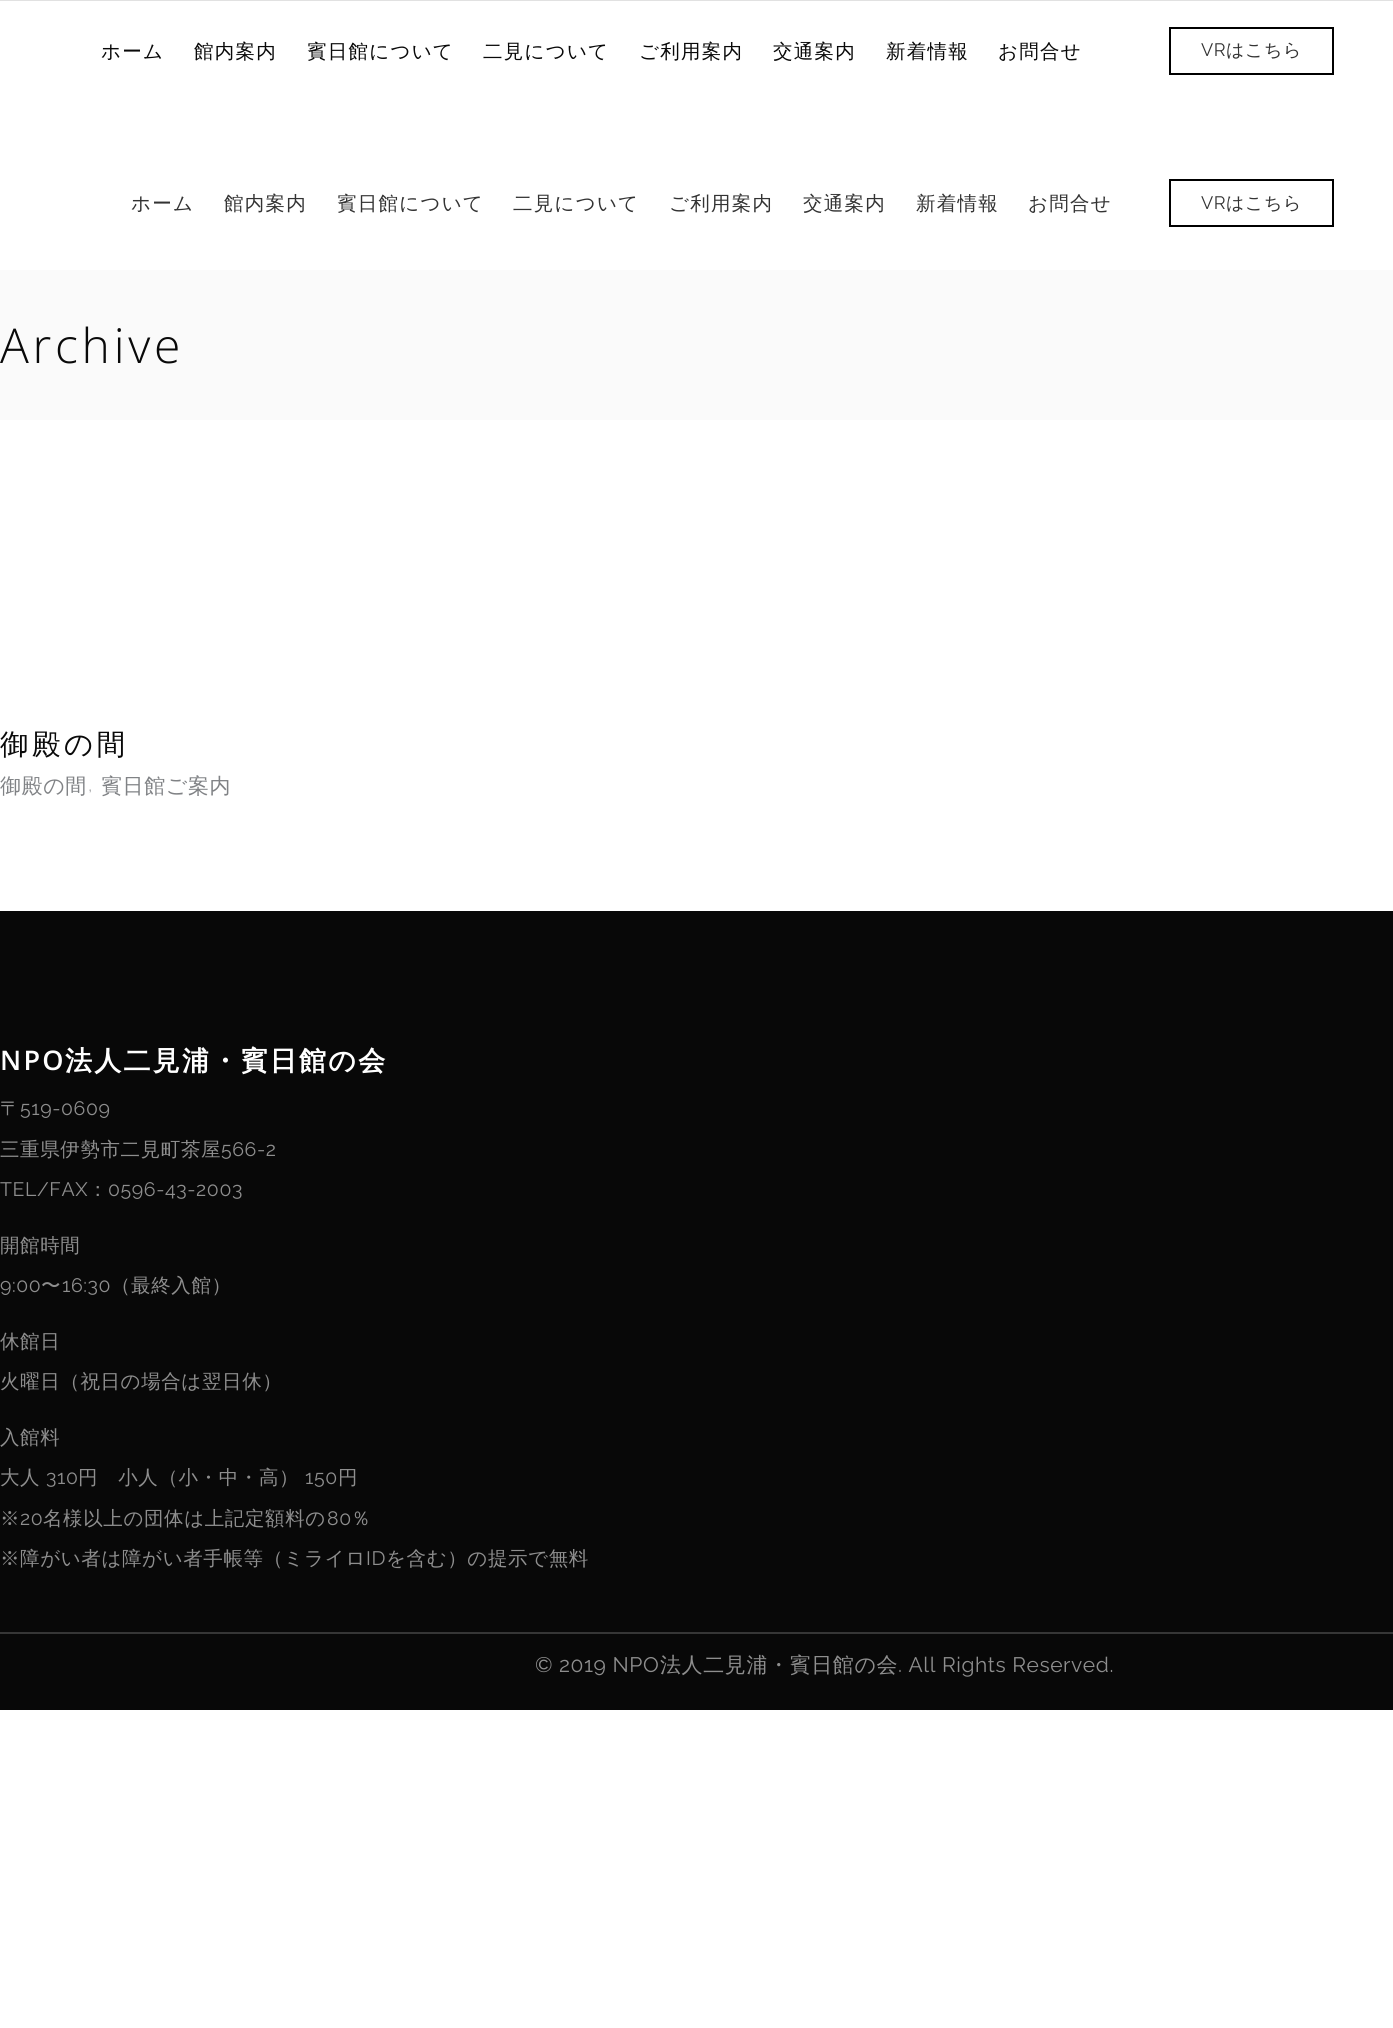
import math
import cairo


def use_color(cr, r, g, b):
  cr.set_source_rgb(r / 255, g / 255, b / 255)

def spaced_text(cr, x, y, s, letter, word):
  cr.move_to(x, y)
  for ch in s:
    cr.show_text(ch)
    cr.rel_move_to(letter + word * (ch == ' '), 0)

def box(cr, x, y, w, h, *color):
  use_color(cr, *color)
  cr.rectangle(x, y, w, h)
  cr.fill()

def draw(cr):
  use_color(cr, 255, 255, 255)
  cr.paint()
  box(cr, 0, 0, 1393, 1, 225, 225, 225)
  cr.rectangle(1170, 28, 163, 46)
  use_color(cr, 0, 0, 0)
  cr.stroke()
  cr.rectangle(1170, 180, 163, 46)
  cr.stroke()
  box(cr, 0, 270, 1393, 150, 250, 250, 250)
  box(cr, 0, 911, 1393, 721, 8, 8, 8)
  box(cr, 0, 1634, 1393, 76, 8, 8, 8)
  box(cr, 0, 1632, 1393, 2, 54, 54, 54)
  cr.select_font_face("WenQuanYi Zen Hei Medium")
  cr.set_font_size(19.5)
  use_color(cr, 9, 9, 9)
  spaced_text(cr, 101, 58, "ホーム", 1.25, 0)
  spaced_text(cr, 194, 58, "館内案内", 1.25, 0)
  spaced_text(cr, 307, 58, "賓日館について", 1.25, 0)
  spaced_text(cr, 483, 58, "二見について", 1.25, 0)
  spaced_text(cr, 639, 58, "ご利用案内", 1.25, 0)
  spaced_text(cr, 773, 58, "交通案内", 1.25, 0)
  spaced_text(cr, 886, 58, "新着情報", 1.25, 0)
  spaced_text(cr, 998, 58, "お問合せ", 1.25, 0)
  cr.select_font_face("Raleway")
  cr.set_font_size(18)
  use_color(cr, 51, 51, 51)
  spaced_text(cr, 1201, 56, "VR", 0.6, 0)
  cr.select_font_face("WenQuanYi Zen Hei Medium")
  spaced_text(cr, 1226, 56, "はこちら", 0.6, 0)
  cr.set_font_size(19.5)
  spaced_text(cr, 131, 210, "ホーム", 1.25, 0)
  spaced_text(cr, 224, 210, "館内案内", 1.25, 0)
  spaced_text(cr, 337, 210, "賓日館について", 1.25, 0)
  spaced_text(cr, 513, 210, "二見について", 1.25, 0)
  spaced_text(cr, 669, 210, "ご利用案内", 1.25, 0)
  spaced_text(cr, 803, 210, "交通案内", 1.25, 0)
  spaced_text(cr, 916, 210, "新着情報", 1.25, 0)
  spaced_text(cr, 1028, 210, "お問合せ", 1.25, 0)
  cr.select_font_face("Raleway")
  cr.set_font_size(18)
  spaced_text(cr, 1201, 209, "VR", 0.6, 0)
  cr.select_font_face("WenQuanYi Zen Hei Medium")
  spaced_text(cr, 1226, 209, "はこちら", 0.6, 0)
  cr.select_font_face("Open Sans Light")
  cr.set_font_size(48)
  use_color(cr, 9, 9, 9)
  spaced_text(cr, 0, 363, "Archive", 3.75, 0)
  cr.select_font_face("WenQuanYi Zen Hei Medium")
  cr.set_font_size(28.5)
  spaced_text(cr, 0, 754, "御殿の間", 3.5, 0)
  cr.set_font_size(21)
  use_color(cr, 128, 130, 133)
  spaced_text(cr, 0, 793, "御殿の間", 0.6, 0)
  cr.select_font_face("Raleway Light")
  cr.set_font_size(18)
  spaced_text(cr, 88, 791, ",", 0.6, 0)
  cr.select_font_face("WenQuanYi Zen Hei Medium")
  cr.set_font_size(21)
  spaced_text(cr, 101, 793, "賓日館ご案内", 0.6, 0)
  cr.select_font_face("Open Sans SemiBold")
  cr.set_font_size(27)
  use_color(cr, 255, 255, 255)
  spaced_text(cr, 0, 1070, "NPO", 2.25, 0)
  cr.select_font_face("WenQuanYi Zen Hei", cairo.FONT_SLANT_NORMAL, cairo.FONT_WEIGHT_BOLD)
  spaced_text(cr, 65, 1070, "法人二見浦・賓日館の会", 2.25, 0)
  cr.select_font_face("WenQuanYi Zen Hei Medium")
  cr.set_font_size(19.5)
  use_color(cr, 142, 142, 142)
  spaced_text(cr, 0, 1115, "〒", 0.6, 0)
  cr.select_font_face("Raleway")
  spaced_text(cr, 20, 1115, "519-0609", 0.6, 0)
  cr.select_font_face("WenQuanYi Zen Hei Medium")
  spaced_text(cr, 0, 1156, "三重県伊勢市二見町茶屋", 0.6, 0)
  cr.select_font_face("Raleway")
  spaced_text(cr, 221, 1156, "566-2", 0.6, 0)
  spaced_text(cr, 0, 1196, "TEL/FAX", 0.6, 0)
  cr.select_font_face("WenQuanYi Zen Hei Medium")
  spaced_text(cr, 88, 1196, "：", 0.6, 0)
  cr.select_font_face("Raleway")
  spaced_text(cr, 108, 1196, "0596-43-2003", 0.6, 0)
  cr.select_font_face("WenQuanYi Zen Hei Medium")
  spaced_text(cr, 0, 1252, "開館時間", 0.6, 0)
  cr.select_font_face("Raleway")
  spaced_text(cr, 0, 1292, "9:00", 0.6, 0)
  cr.select_font_face("WenQuanYi Zen Hei Medium")
  spaced_text(cr, 41, 1292, "〜", 0.6, 0)
  cr.select_font_face("Raleway")
  spaced_text(cr, 62, 1292, "16:30", 0.6, 0)
  cr.select_font_face("WenQuanYi Zen Hei Medium")
  spaced_text(cr, 111, 1292, "（最終入館）", 0.6, 0)
  spaced_text(cr, 0, 1348, "休館日", 0.6, 0)
  spaced_text(cr, 0, 1388, "火曜日（祝日の場合は翌日休）", 0.6, 0)
  spaced_text(cr, 0, 1444, "入館料", 0.6, 0)
  spaced_text(cr, 0, 1484, "大人", 0.6, 0)
  cr.select_font_face("Raleway")
  spaced_text(cr, 46, 1484, "310", 0.6, 0)
  cr.select_font_face("WenQuanYi Zen Hei Medium")
  spaced_text(cr, 78, 1484, "円　小人（小・中・高）", 0.6, 0)
  cr.select_font_face("Raleway")
  spaced_text(cr, 305, 1484, "150", 0.6, 0)
  cr.select_font_face("WenQuanYi Zen Hei Medium")
  spaced_text(cr, 338, 1484, "円", 0.6, 0)
  spaced_text(cr, 0, 1525, "※", 0.6, 0)
  cr.select_font_face("Raleway")
  spaced_text(cr, 20, 1525, "20", 0.6, 0)
  cr.select_font_face("WenQuanYi Zen Hei Medium")
  spaced_text(cr, 43, 1525, "名様以上の団体は上記定額料の", 0.6, 0)
  cr.select_font_face("Raleway")
  spaced_text(cr, 327, 1525, "80", 0.6, 0)
  cr.select_font_face("WenQuanYi Zen Hei Medium")
  spaced_text(cr, 351, 1525, "％", 0.6, 0)
  spaced_text(cr, 0, 1565, "※障がい者は障がい者手帳等（ミライロ", 0.6, 0)
  cr.select_font_face("Raleway")
  spaced_text(cr, 366, 1565, "ID", 0.6, 0)
  cr.select_font_face("WenQuanYi Zen Hei Medium")
  spaced_text(cr, 386, 1565, "を含む）の提示で無料", 0.6, 0)
  cr.select_font_face("Raleway")
  cr.set_font_size(21)
  spaced_text(cr, 535, 1672, "© 2019 NPO", 0.6, 0)
  cr.select_font_face("WenQuanYi Zen Hei Medium")
  spaced_text(cr, 660, 1672, "法人二見浦・賓日館の会", 0.6, 0)
  cr.select_font_face("Raleway")
  spaced_text(cr, 898, 1672, ". All Rights Reserved.", 0.6, 0)


surface = cairo.ImageSurface(cairo.FORMAT_RGB24, 1393, 2028)
cr = cairo.Context(surface)
options = cairo.FontOptions()
options.set_hint_metrics(cairo.HINT_METRICS_OFF)
options.set_hint_style(cairo.HINT_STYLE_NONE)
cr.set_font_options(options)
cr.set_miter_limit(4)
draw(cr)
surface.write_to_png("out.png")
